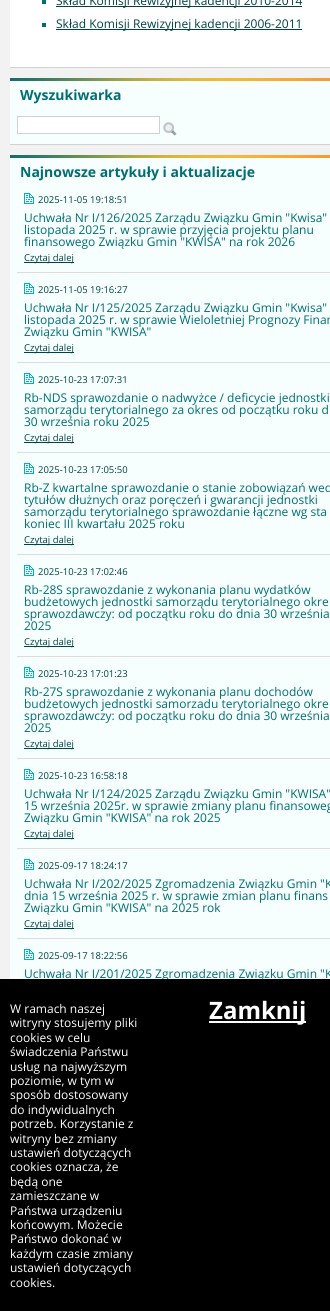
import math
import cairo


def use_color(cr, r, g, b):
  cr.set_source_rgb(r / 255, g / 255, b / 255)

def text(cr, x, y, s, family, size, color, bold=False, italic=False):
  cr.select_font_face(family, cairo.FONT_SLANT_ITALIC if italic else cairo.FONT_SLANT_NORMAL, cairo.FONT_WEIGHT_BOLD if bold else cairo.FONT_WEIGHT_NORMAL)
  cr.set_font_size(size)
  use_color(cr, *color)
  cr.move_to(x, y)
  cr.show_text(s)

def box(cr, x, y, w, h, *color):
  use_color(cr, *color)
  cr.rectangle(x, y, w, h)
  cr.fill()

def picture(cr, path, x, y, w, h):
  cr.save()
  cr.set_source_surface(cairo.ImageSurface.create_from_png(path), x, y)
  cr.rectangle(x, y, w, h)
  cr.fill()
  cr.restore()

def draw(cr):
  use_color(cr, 242, 242, 242)
  cr.paint()
  box(cr, 10, 0, 320, 67, 255, 255, 255)
  box(cr, 10, 67, 320, 1, 209, 209, 209)
  box(cr, 42, 0, 4, 4, 0, 110, 115)
  box(cr, 56, 6, 246, 1, 0, 66, 69)
  box(cr, 42, 23, 4, 4, 0, 110, 115)
  box(cr, 56, 29, 246, 1, 0, 66, 69)
  picture(cr, "img_01.png", 10, 78, 320, 3)
  box(cr, 10, 81, 320, 63, 246, 254, 254)
  box(cr, 10, 144, 320, 1, 209, 209, 209)
  use_color(cr, 255, 255, 255)
  cr.rectangle(17.5, 116.5, 142, 17)
  cr.fill_preserve()
  use_color(cr, 209, 209, 209)
  cr.set_line_width(1)
  cr.stroke()
  picture(cr, "img_02.png", 163, 122, 14, 14)
  picture(cr, "img_01.png", 10, 155, 320, 3)
  box(cr, 10, 158, 320, 821, 246, 254, 254)
  picture(cr, "img_03.png", 24, 193, 10, 11)
  box(cr, 24, 262, 50, 1, 0, 66, 69)
  box(cr, 17, 272, 313, 1, 221, 221, 221)
  picture(cr, "img_03.png", 24, 283, 10, 11)
  box(cr, 24, 352, 50, 1, 0, 66, 69)
  box(cr, 17, 362, 313, 1, 221, 221, 221)
  picture(cr, "img_03.png", 24, 373, 10, 11)
  box(cr, 24, 442, 50, 1, 0, 66, 69)
  box(cr, 17, 452, 313, 1, 221, 221, 221)
  picture(cr, "img_03.png", 24, 463, 10, 11)
  box(cr, 24, 544, 50, 1, 0, 66, 69)
  box(cr, 17, 554, 313, 1, 221, 221, 221)
  picture(cr, "img_03.png", 24, 565, 10, 11)
  box(cr, 24, 646, 50, 1, 0, 66, 69)
  box(cr, 17, 656, 313, 1, 221, 221, 221)
  picture(cr, "img_03.png", 24, 667, 10, 11)
  box(cr, 24, 748, 50, 1, 0, 66, 69)
  box(cr, 17, 758, 313, 1, 221, 221, 221)
  picture(cr, "img_03.png", 24, 769, 10, 11)
  box(cr, 24, 838, 50, 1, 0, 66, 69)
  box(cr, 17, 848, 313, 1, 221, 221, 221)
  picture(cr, "img_03.png", 24, 859, 10, 11)
  box(cr, 24, 928, 50, 1, 0, 66, 69)
  box(cr, 17, 938, 313, 1, 221, 221, 221)
  picture(cr, "img_03.png", 24, 949, 10, 11)
  text(cr, 56, 5, "Skład Komisji Rewizyjnej kadencji 2010-2014", "Open Sans", 12, (0, 66, 69))
  text(cr, 56, 28, "Skład Komisji Rewizyjnej kadencji 2006-2011", "Open Sans", 12, (0, 66, 69))
  text(cr, 20, 100, "Wyszukiwarka", "Open Sans", 14, (0, 110, 115), bold=True)
  text(cr, 20, 177, "Najnowsze artykuły i aktualizacje", "Open Sans", 14, (0, 110, 115), bold=True)
  text(cr, 38, 203, "2025-11-05 19:18:51", "Open Sans", 9.5, (0, 66, 69))
  text(cr, 24, 222, "Uchwała Nr I/126/2025 Zarządu Związku Gmin \"Kwisa\"", "Open Sans", 12, (0, 110, 115))
  text(cr, 24, 234, "listopada 2025 r. w sprawie przyjęcia projektu planu", "Open Sans", 12, (0, 110, 115))
  text(cr, 24, 246, "finansowego Związku Gmin \"KWISA\" na rok 2026", "Open Sans", 12, (0, 110, 115))
  text(cr, 24, 261, "Czytaj dalej", "Open Sans", 9.5, (0, 66, 69))
  text(cr, 38, 293, "2025-11-05 19:16:27", "Open Sans", 9.5, (0, 66, 69))
  text(cr, 24, 312, "Uchwała Nr I/125/2025 Zarządu Związku Gmin \"Kwisa\"", "Open Sans", 12, (0, 110, 115))
  text(cr, 24, 324, "listopada 2025 r. w sprawie Wieloletniej Prognozy Finan", "Open Sans", 12, (0, 110, 115))
  text(cr, 24, 336, "Związku Gmin \"KWISA\"", "Open Sans", 12, (0, 110, 115))
  text(cr, 24, 351, "Czytaj dalej", "Open Sans", 9.5, (0, 66, 69))
  text(cr, 38, 383, "2025-10-23 17:07:31", "Open Sans", 9.5, (0, 66, 69))
  text(cr, 24, 402, "Rb-NDS sprawozdanie o nadwyżce / deficycie jednostki", "Open Sans", 12, (0, 110, 115))
  text(cr, 24, 414, "samorządu terytorialnego za okres od początku roku d", "Open Sans", 12, (0, 110, 115))
  text(cr, 24, 426, "30 września roku 2025", "Open Sans", 12, (0, 110, 115))
  text(cr, 24, 441, "Czytaj dalej", "Open Sans", 9.5, (0, 66, 69))
  text(cr, 38, 473, "2025-10-23 17:05:50", "Open Sans", 9.5, (0, 66, 69))
  text(cr, 24, 492, "Rb-Z kwartalne sprawozdanie o stanie zobowiązań wed", "Open Sans", 12, (0, 110, 115))
  text(cr, 24, 504, "tytułów dłużnych oraz poręczeń i gwarancji jednostki", "Open Sans", 12, (0, 110, 115))
  text(cr, 24, 516, "samorządu terytorialnego sprawozdanie łączne wg sta", "Open Sans", 12, (0, 110, 115))
  text(cr, 24, 528, "koniec III kwartału 2025 roku", "Open Sans", 12, (0, 110, 115))
  text(cr, 24, 543, "Czytaj dalej", "Open Sans", 9.5, (0, 66, 69))
  text(cr, 38, 575, "2025-10-23 17:02:46", "Open Sans", 9.5, (0, 66, 69))
  text(cr, 24, 594, "Rb-28S sprawozdanie z wykonania planu wydatków", "Open Sans", 12, (0, 110, 115))
  text(cr, 24, 606, "budżetowych jednostki samorządu terytorialnego okre", "Open Sans", 12, (0, 110, 115))
  text(cr, 24, 618, "sprawozdawczy: od początku roku do dnia 30 września", "Open Sans", 12, (0, 110, 115))
  text(cr, 24, 630, "2025", "Open Sans", 12, (0, 110, 115))
  text(cr, 24, 645, "Czytaj dalej", "Open Sans", 9.5, (0, 66, 69))
  text(cr, 38, 677, "2025-10-23 17:01:23", "Open Sans", 9.5, (0, 66, 69))
  text(cr, 24, 696, "Rb-27S sprawozdanie z wykonania planu dochodów", "Open Sans", 12, (0, 110, 115))
  text(cr, 24, 708, "budżetowych jednostki samorzadu terytorialnego okre", "Open Sans", 12, (0, 110, 115))
  text(cr, 24, 720, "sprawozdawczy: od początku roku do dnia 30 września", "Open Sans", 12, (0, 110, 115))
  text(cr, 24, 732, "2025", "Open Sans", 12, (0, 110, 115))
  text(cr, 24, 747, "Czytaj dalej", "Open Sans", 9.5, (0, 66, 69))
  text(cr, 38, 779, "2025-10-23 16:58:18", "Open Sans", 9.5, (0, 66, 69))
  text(cr, 24, 798, "Uchwała Nr I/124/2025 Zarządu Związku Gmin \"KWISA\"", "Open Sans", 12, (0, 110, 115))
  text(cr, 24, 810, "15 września 2025r. w sprawie zmiany planu finansoweg", "Open Sans", 12, (0, 110, 115))
  text(cr, 24, 822, "Związku Gmin \"KWISA\" na rok 2025", "Open Sans", 12, (0, 110, 115))
  text(cr, 24, 837, "Czytaj dalej", "Open Sans", 9.5, (0, 66, 69))
  text(cr, 38, 869, "2025-09-17 18:24:17", "Open Sans", 9.5, (0, 66, 69))
  text(cr, 24, 888, "Uchwała Nr I/202/2025 Zgromadzenia Związku Gmin \"K", "Open Sans", 12, (0, 110, 115))
  text(cr, 24, 900, "dnia 15 września 2025 r. w sprawie zmian planu finans", "Open Sans", 12, (0, 110, 115))
  text(cr, 24, 912, "Związku Gmin \"KWISA\" na 2025 rok", "Open Sans", 12, (0, 110, 115))
  text(cr, 24, 927, "Czytaj dalej", "Open Sans", 9.5, (0, 66, 69))
  text(cr, 38, 959, "2025-09-17 18:22:56", "Open Sans", 9.5, (0, 66, 69))
  text(cr, 24, 978, "Uchwała Nr I/201/2025 Zgromadzenia Związku Gmin \"K", "Open Sans", 12, (0, 110, 115))
  box(cr, 0, 979, 330, 332, 0, 0, 0)
  text(cr, 10, 1013, "W ramach naszej", "Open Sans", 12, (255, 255, 255))
  text(cr, 10, 1027, "witryny stosujemy pliki", "Open Sans", 12, (255, 255, 255))
  text(cr, 10, 1042, "cookies w celu", "Open Sans", 12, (255, 255, 255))
  text(cr, 10, 1056, "świadczenia Państwu", "Open Sans", 12, (255, 255, 255))
  text(cr, 10, 1071, "usług na najwyższym", "Open Sans", 12, (255, 255, 255))
  text(cr, 10, 1085, "poziomie, w tym w", "Open Sans", 12, (255, 255, 255))
  text(cr, 10, 1099, "sposób dostosowany", "Open Sans", 12, (255, 255, 255))
  text(cr, 10, 1114, "do indywidualnych", "Open Sans", 12, (255, 255, 255))
  text(cr, 10, 1128, "potrzeb. Korzystanie z", "Open Sans", 12, (255, 255, 255))
  text(cr, 10, 1143, "witryny bez zmiany", "Open Sans", 12, (255, 255, 255))
  text(cr, 10, 1157, "ustawień dotyczących", "Open Sans", 12, (255, 255, 255))
  text(cr, 10, 1171, "cookies oznacza, że", "Open Sans", 12, (255, 255, 255))
  text(cr, 10, 1186, "będą one", "Open Sans", 12, (255, 255, 255))
  text(cr, 10, 1200, "zamieszczane w", "Open Sans", 12, (255, 255, 255))
  text(cr, 10, 1215, "Państwa urządzeniu", "Open Sans", 12, (255, 255, 255))
  text(cr, 10, 1229, "końcowym. Możecie", "Open Sans", 12, (255, 255, 255))
  text(cr, 10, 1243, "Państwo dokonać w", "Open Sans", 12, (255, 255, 255))
  text(cr, 10, 1258, "każdym czasie zmiany", "Open Sans", 12, (255, 255, 255))
  text(cr, 10, 1272, "ustawień dotyczących", "Open Sans", 12, (255, 255, 255))
  text(cr, 10, 1287, "cookies.", "Open Sans", 12, (255, 255, 255))
  box(cr, 209, 1021, 97, 2, 255, 255, 255)
  text(cr, 209, 1019, "Zamknij", "Open Sans", 24, (255, 255, 255), bold=True)


surface = cairo.ImageSurface(cairo.FORMAT_RGB24, 330, 1311)
cr = cairo.Context(surface)
options = cairo.FontOptions()
options.set_hint_metrics(cairo.HINT_METRICS_OFF)
options.set_hint_style(cairo.HINT_STYLE_NONE)
cr.set_font_options(options)
cr.set_miter_limit(4)
draw(cr)
surface.write_to_png("out.png")
